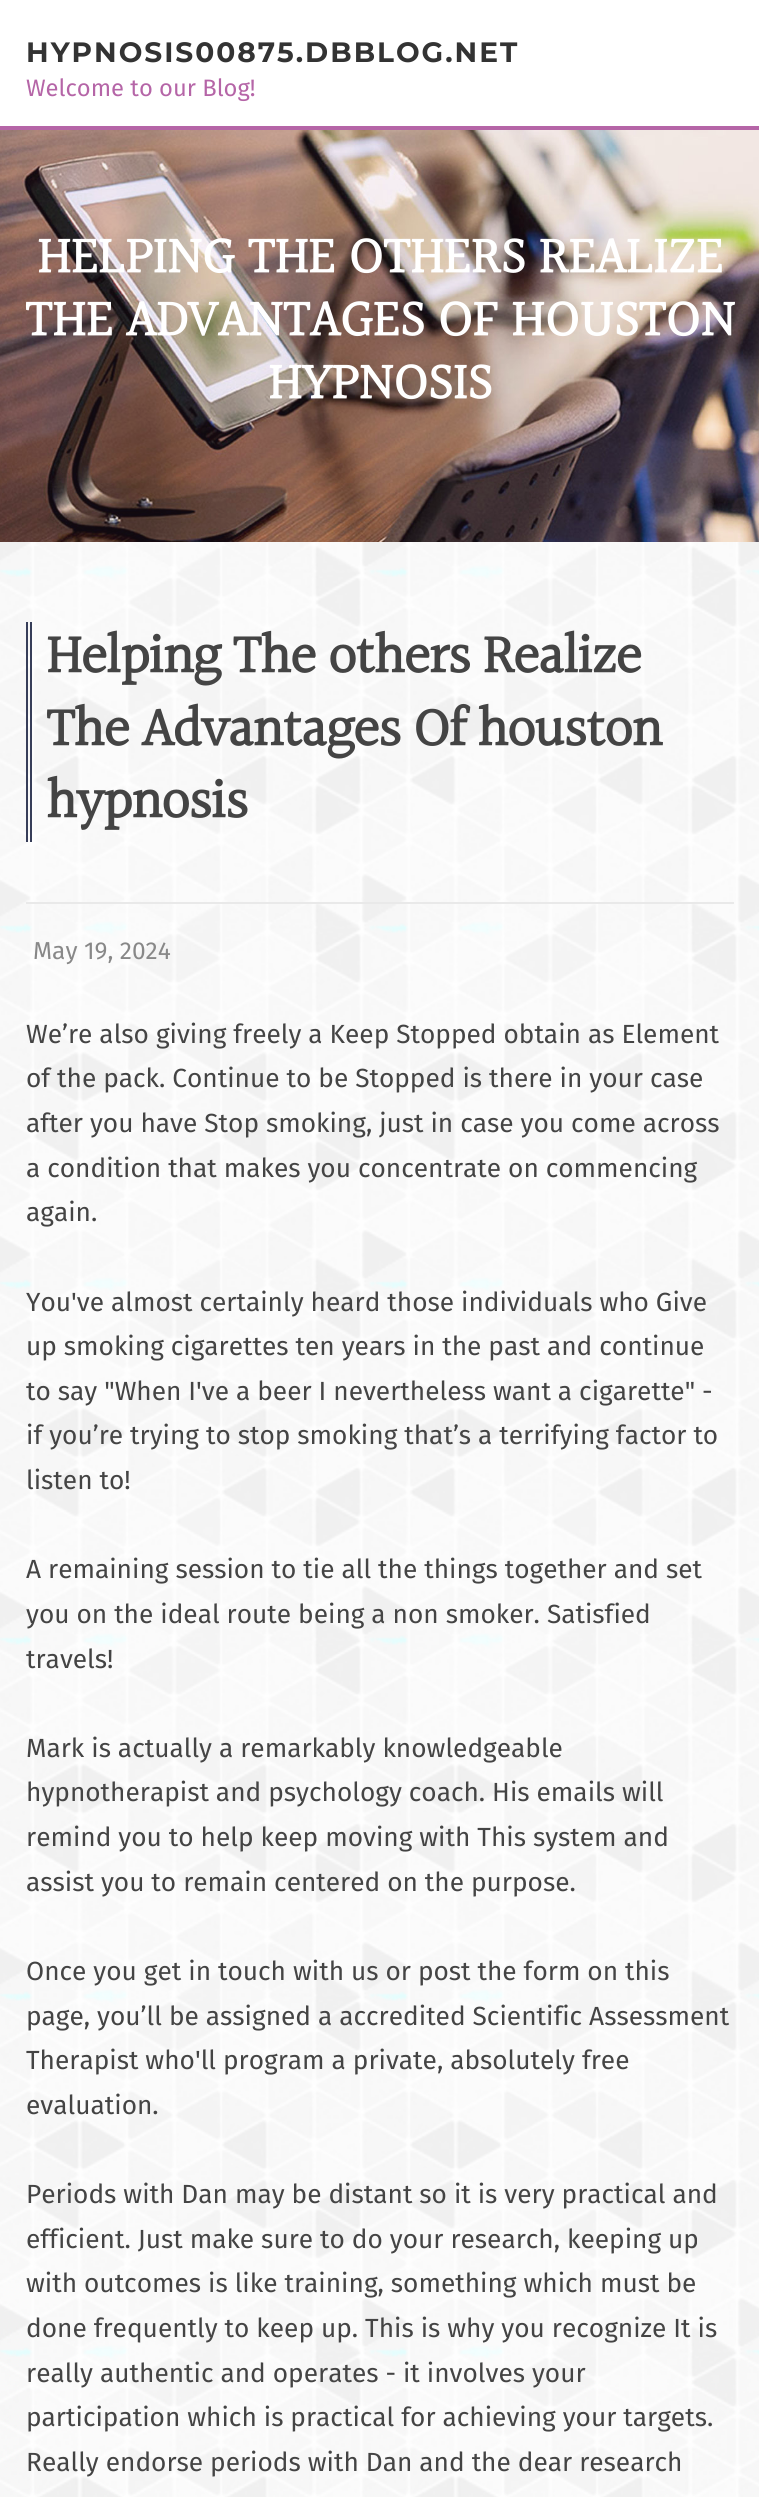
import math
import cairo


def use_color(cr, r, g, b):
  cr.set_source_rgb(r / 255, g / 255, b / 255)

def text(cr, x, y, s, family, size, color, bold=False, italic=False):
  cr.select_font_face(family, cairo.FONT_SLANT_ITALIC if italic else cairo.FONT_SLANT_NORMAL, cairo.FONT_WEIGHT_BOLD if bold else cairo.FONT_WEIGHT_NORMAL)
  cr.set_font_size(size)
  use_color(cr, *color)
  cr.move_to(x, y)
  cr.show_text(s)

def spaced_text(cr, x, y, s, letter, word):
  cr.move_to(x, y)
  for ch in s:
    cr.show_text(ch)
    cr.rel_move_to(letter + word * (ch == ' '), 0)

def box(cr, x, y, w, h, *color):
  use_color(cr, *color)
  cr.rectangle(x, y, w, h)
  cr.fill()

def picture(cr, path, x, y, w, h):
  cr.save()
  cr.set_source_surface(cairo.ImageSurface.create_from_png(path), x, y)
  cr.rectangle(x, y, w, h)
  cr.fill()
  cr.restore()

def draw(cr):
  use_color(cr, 255, 255, 255)
  cr.paint()
  box(cr, 0, 126, 759, 4, 181, 101, 167)
  picture(cr, "img_01.png", 0, 130, 759, 412)
  picture(cr, "img_02.png", 0, 542, 759, 1955)
  box(cr, 26, 622, 2, 220, 55, 62, 89)
  box(cr, 30, 622, 2, 220, 55, 62, 89)
  box(cr, 26, 902, 708, 2, 233, 233, 233)
  cr.select_font_face("Montserrat", cairo.FONT_SLANT_NORMAL, cairo.FONT_WEIGHT_BOLD)
  cr.set_font_size(28)
  use_color(cr, 51, 51, 51)
  spaced_text(cr, 26, 62, "HYPNOSIS00875.DBBLOG.NET", 2, 0)
  text(cr, 26, 96, "Welcome to our Blog!", "Fira Sans", 23.75, (181, 101, 167))
  text(cr, 37, 275, "HELPING THE OTHERS REALIZE", "Halant", 52.5, (255, 255, 255), bold=True)
  text(cr, 25, 338, "THE ADVANTAGES OF HOUSTON", "Halant", 52.5, (255, 255, 255), bold=True)
  text(cr, 268, 401, "HYPNOSIS", "Halant", 52.5, (255, 255, 255), bold=True)
  cr.set_font_size(56)
  use_color(cr, 68, 68, 68)
  spaced_text(cr, 46, 675, "Helping The others Realize", -1.2, 0)
  spaced_text(cr, 46, 748, "The Advantages Of houston", -1.2, 0)
  spaced_text(cr, 46, 820, "hypnosis", -1.2, 0)
  text(cr, 33, 959, "May 19, 2024", "Fira Sans", 24.5, (136, 136, 136))
  text(cr, 26, 1043, "We’re also giving freely a Keep Stopped obtain as Element", "Fira Sans", 26.25, (68, 68, 68))
  text(cr, 26, 1087, "of the pack. Continue to be Stopped is there in your case", "Fira Sans", 26.25, (68, 68, 68))
  text(cr, 26, 1132, "after you have Stop smoking, just in case you come across", "Fira Sans", 26.25, (68, 68, 68))
  text(cr, 26, 1177, "a condition that makes you concentrate on commencing", "Fira Sans", 26.25, (68, 68, 68))
  text(cr, 26, 1221, "again.", "Fira Sans", 26.25, (68, 68, 68))
  text(cr, 26, 1311, "You've almost certainly heard those individuals who Give", "Fira Sans", 26.25, (68, 68, 68))
  text(cr, 26, 1355, "up smoking cigarettes ten years in the past and continue", "Fira Sans", 26.25, (68, 68, 68))
  text(cr, 26, 1400, "to say \"When I've a beer I nevertheless want a cigarette\" -", "Fira Sans", 26.25, (68, 68, 68))
  text(cr, 26, 1444, "if you’re trying to stop smoking that’s a terrifying factor to", "Fira Sans", 26.25, (68, 68, 68))
  text(cr, 26, 1489, "listen to!", "Fira Sans", 26.25, (68, 68, 68))
  text(cr, 26, 1578, "A remaining session to tie all the things together and set", "Fira Sans", 26.25, (68, 68, 68))
  text(cr, 26, 1623, "you on the ideal route being a non smoker. Satisfied", "Fira Sans", 26.25, (68, 68, 68))
  text(cr, 26, 1668, "travels!", "Fira Sans", 26.25, (68, 68, 68))
  text(cr, 26, 1757, "Mark is actually a remarkably knowledgeable", "Fira Sans", 26.25, (68, 68, 68))
  text(cr, 26, 1801, "hypnotherapist and psychology coach. His emails will", "Fira Sans", 26.25, (68, 68, 68))
  text(cr, 26, 1846, "remind you to help keep moving with This system and", "Fira Sans", 26.25, (68, 68, 68))
  text(cr, 26, 1891, "assist you to remain centered on the purpose.", "Fira Sans", 26.25, (68, 68, 68))
  text(cr, 26, 1980, "Once you get in touch with us or post the form on this", "Fira Sans", 26.25, (68, 68, 68))
  text(cr, 26, 2025, "page, you’ll be assigned a accredited Scientific Assessment", "Fira Sans", 26.25, (68, 68, 68))
  text(cr, 26, 2069, "Therapist who'll program a private, absolutely free", "Fira Sans", 26.25, (68, 68, 68))
  text(cr, 26, 2114, "evaluation.", "Fira Sans", 26.25, (68, 68, 68))
  text(cr, 26, 2203, "Periods with Dan may be distant so it is very practical and", "Fira Sans", 26.25, (68, 68, 68))
  text(cr, 26, 2248, "efficient. Just make sure to do your research, keeping up", "Fira Sans", 26.25, (68, 68, 68))
  text(cr, 26, 2292, "with outcomes is like training, something which must be", "Fira Sans", 26.25, (68, 68, 68))
  text(cr, 26, 2337, "done frequently to keep up. This is why you recognize It is", "Fira Sans", 26.25, (68, 68, 68))
  text(cr, 26, 2382, "really authentic and operates - it involves your", "Fira Sans", 26.25, (68, 68, 68))
  text(cr, 26, 2426, "participation which is practical for achieving your targets.", "Fira Sans", 26.25, (68, 68, 68))
  text(cr, 26, 2471, "Really endorse periods with Dan and the dear research", "Fira Sans", 26.25, (68, 68, 68))


surface = cairo.ImageSurface(cairo.FORMAT_RGB24, 759, 2497)
cr = cairo.Context(surface)
options = cairo.FontOptions()
options.set_hint_metrics(cairo.HINT_METRICS_OFF)
options.set_hint_style(cairo.HINT_STYLE_NONE)
cr.set_font_options(options)
cr.set_miter_limit(4)
draw(cr)
surface.write_to_png("out.png")
